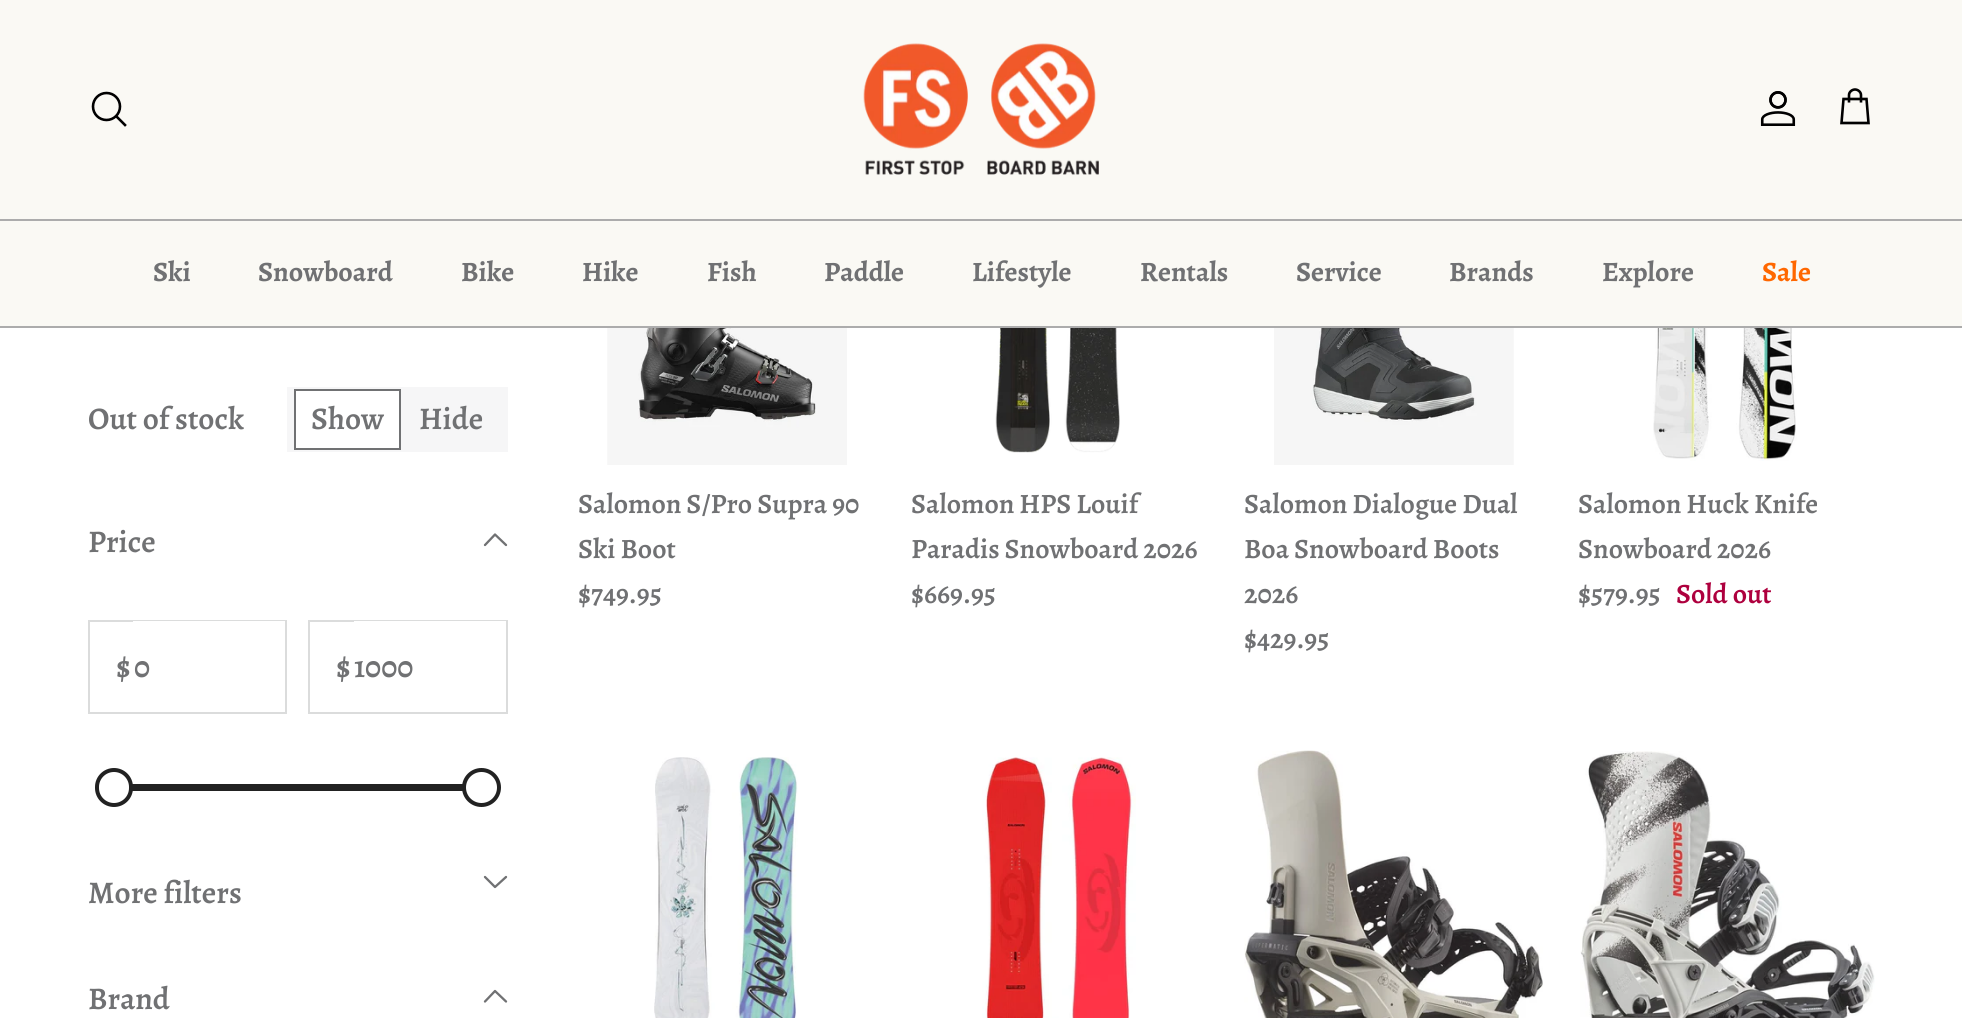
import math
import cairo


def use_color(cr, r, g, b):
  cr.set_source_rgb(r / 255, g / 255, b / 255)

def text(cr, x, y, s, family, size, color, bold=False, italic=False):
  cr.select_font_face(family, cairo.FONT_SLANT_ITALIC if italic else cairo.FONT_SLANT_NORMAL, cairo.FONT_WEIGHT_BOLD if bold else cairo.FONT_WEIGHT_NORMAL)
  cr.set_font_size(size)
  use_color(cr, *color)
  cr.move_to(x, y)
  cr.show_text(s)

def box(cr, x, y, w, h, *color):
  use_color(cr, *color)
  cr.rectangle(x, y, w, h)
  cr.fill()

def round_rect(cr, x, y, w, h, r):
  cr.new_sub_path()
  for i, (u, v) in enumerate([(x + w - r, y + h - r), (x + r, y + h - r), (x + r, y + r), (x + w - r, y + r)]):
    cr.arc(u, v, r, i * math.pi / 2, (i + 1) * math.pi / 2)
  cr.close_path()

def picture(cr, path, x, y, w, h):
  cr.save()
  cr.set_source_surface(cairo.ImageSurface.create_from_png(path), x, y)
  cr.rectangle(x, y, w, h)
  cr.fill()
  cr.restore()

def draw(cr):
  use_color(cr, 255, 255, 255)
  cr.paint()
  box(cr, 0, 0, 1962, 219, 250, 249, 244)
  box(cr, 0, 219, 1962, 2, 172, 172, 172)
  cr.arc(106.5, 106.5, 13.5, 0, 2 * math.pi)
  use_color(cr, 0, 0, 0)
  cr.set_line_width(2.6)
  cr.stroke()
  cr.new_path()
  cr.move_to(117, 117)
  cr.line_to(125, 125)
  cr.set_line_cap(cairo.LINE_CAP_SQUARE)
  cr.stroke()
  picture(cr, "img_01.png", 863, 43, 236, 132)
  picture(cr, "img_02.png", 1760, 91, 36, 35)
  cr.new_path()
  cr.move_to(1861, 102.5)
  cr.line_to(1861, 95)
  cr.curve_to(1861, 92, 1858, 89.5, 1855, 89.5)
  cr.curve_to(1852, 89.5, 1849, 92, 1849, 95)
  cr.line_to(1849, 102.5)
  cr.move_to(1843.5, 99)
  cr.line_to(1866.5, 99)
  cr.line_to(1868.5, 123)
  cr.line_to(1841.5, 123)
  cr.close_path()
  cr.set_line_cap(cairo.LINE_CAP_BUTT)
  cr.stroke()
  box(cr, 0, 326, 1962, 2, 172, 172, 172)
  box(cr, 0, 221, 1962, 105, 250, 249, 244)
  box(cr, 287, 387, 221, 65, 246, 246, 247)
  use_color(cr, 255, 255, 255)
  cr.rectangle(295, 390, 105, 59)
  cr.fill_preserve()
  use_color(cr, 112, 113, 115)
  cr.set_line_width(2)
  cr.stroke()
  cr.new_path()
  cr.move_to(506, 545)
  cr.line_to(495, 534.5)
  cr.line_to(485, 545)
  cr.set_line_width(2.3)
  cr.set_line_cap(cairo.LINE_CAP_ROUND)
  cr.set_line_join(cairo.LINE_JOIN_ROUND)
  cr.stroke()
  cr.rectangle(89, 621, 197, 92)
  use_color(cr, 219, 220, 220)
  cr.set_line_width(2)
  cr.set_line_cap(cairo.LINE_CAP_BUTT)
  cr.set_line_join(cairo.LINE_JOIN_MITER)
  cr.stroke()
  box(cr, 133, 621, 152, 1, 255, 255, 255)
  cr.rectangle(309, 621, 198, 92)
  use_color(cr, 219, 220, 220)
  cr.stroke()
  box(cr, 354, 621, 152, 1, 255, 255, 255)
  box(cr, 132, 784, 331, 7, 34, 34, 34)
  use_color(cr, 255, 255, 255)
  round_rect(cr, 97, 770, 34, 35, 17)
  cr.fill_preserve()
  use_color(cr, 34, 34, 34)
  cr.set_line_width(4)
  cr.stroke()
  use_color(cr, 255, 255, 255)
  cr.arc(481.5, 787.5, 17.5, 0, 2 * math.pi)
  cr.fill_preserve()
  use_color(cr, 34, 34, 34)
  cr.stroke()
  cr.new_path()
  cr.move_to(485, 877)
  cr.line_to(495, 887)
  cr.line_to(506, 877)
  use_color(cr, 112, 113, 115)
  cr.set_line_width(2.3)
  cr.set_line_cap(cairo.LINE_CAP_ROUND)
  cr.set_line_join(cairo.LINE_JOIN_ROUND)
  cr.stroke()
  cr.new_path()
  cr.move_to(506, 1001.5)
  cr.line_to(495, 991)
  cr.line_to(485, 1001.5)
  cr.stroke()
  picture(cr, "img_03.png", 607, 328, 240, 137)
  picture(cr, "img_04.png", 995, 328, 125, 125)
  picture(cr, "img_05.png", 1274, 328, 240, 137)
  picture(cr, "img_06.png", 1653, 328, 144, 133)
  picture(cr, "img_07.png", 654, 757, 144, 261)
  picture(cr, "img_08.png", 982, 757, 154, 261)
  picture(cr, "img_09.png", 1244, 750, 299, 268)
  picture(cr, "img_10.png", 1580, 751, 295, 267)
  text(cr, 153, 281, "Ski", "Alegreya", 28, (112, 113, 115), bold=True)
  text(cr, 258, 281, "Snowboard", "Alegreya", 28, (112, 113, 115), bold=True)
  text(cr, 461, 281, "Bike", "Alegreya", 28, (112, 113, 115), bold=True)
  text(cr, 582, 281, "Hike", "Alegreya", 28, (112, 113, 115), bold=True)
  text(cr, 707, 281, "Fish", "Alegreya", 28, (112, 113, 115), bold=True)
  text(cr, 824, 281, "Paddle", "Alegreya", 28, (112, 113, 115), bold=True)
  text(cr, 972, 281, "Lifestyle", "Alegreya", 28, (112, 113, 115), bold=True)
  text(cr, 1140, 281, "Rentals", "Alegreya", 28, (112, 113, 115), bold=True)
  text(cr, 1296, 281, "Service", "Alegreya", 28, (112, 113, 115), bold=True)
  text(cr, 1449, 281, "Brands", "Alegreya", 28, (112, 113, 115), bold=True)
  text(cr, 1602, 281, "Explore", "Alegreya", 28, (112, 113, 115), bold=True)
  text(cr, 1762, 281, "Sale", "Alegreya", 28, (255, 103, 0), bold=True)
  text(cr, 88, 429, "Out of stock", "Alegreya SemiBold", 31.5, (112, 113, 115))
  text(cr, 311, 429, "Show", "Alegreya SemiBold", 31.5, (112, 113, 115))
  text(cr, 419, 429, "Hide", "Alegreya SemiBold", 31.5, (112, 113, 115))
  text(cr, 88, 552, "Price", "Alegreya SemiBold", 31.5, (112, 113, 115))
  text(cr, 116, 677, "$", "Alegreya SemiBold", 31.5, (112, 113, 115))
  text(cr, 134, 677, "0", "Alegreya SemiBold", 31.5, (112, 113, 115))
  text(cr, 336, 677, "$", "Alegreya SemiBold", 31.5, (112, 113, 115))
  text(cr, 354, 677, "1000", "Alegreya SemiBold", 31.5, (112, 113, 115))
  text(cr, 88, 903, "More filters", "Alegreya SemiBold", 31.5, (112, 113, 115))
  text(cr, 88, 1009, "Brand", "Alegreya SemiBold", 31.5, (112, 113, 115))
  text(cr, 578, 513, "Salomon S/Pro Supra 90", "Alegreya SemiBold", 28, (112, 113, 115))
  text(cr, 578, 558, "Ski Boot", "Alegreya SemiBold", 28, (112, 113, 115))
  text(cr, 578, 603, "$749.95", "Alegreya SemiBold", 28, (112, 113, 115))
  text(cr, 911, 513, "Salomon HPS Louif", "Alegreya SemiBold", 28, (112, 113, 115))
  text(cr, 911, 558, "Paradis Snowboard 2026", "Alegreya SemiBold", 28, (112, 113, 115))
  text(cr, 911, 603, "$669.95", "Alegreya SemiBold", 28, (112, 113, 115))
  text(cr, 1244, 513, "Salomon Dialogue Dual", "Alegreya SemiBold", 28, (112, 113, 115))
  text(cr, 1244, 558, "Boa Snowboard Boots", "Alegreya SemiBold", 28, (112, 113, 115))
  text(cr, 1244, 603, "2026", "Alegreya SemiBold", 28, (112, 113, 115))
  text(cr, 1244, 648, "$429.95", "Alegreya SemiBold", 28, (112, 113, 115))
  text(cr, 1578, 513, "Salomon Huck Knife", "Alegreya SemiBold", 28, (112, 113, 115))
  text(cr, 1578, 558, "Snowboard 2026", "Alegreya SemiBold", 28, (112, 113, 115))
  text(cr, 1578, 603, "$579.95", "Alegreya SemiBold", 28, (112, 113, 115))
  text(cr, 1676, 603, "Sold out", "Alegreya SemiBold", 28, (174, 0, 62))


surface = cairo.ImageSurface(cairo.FORMAT_RGB24, 1962, 1018)
cr = cairo.Context(surface)
options = cairo.FontOptions()
options.set_hint_metrics(cairo.HINT_METRICS_OFF)
options.set_hint_style(cairo.HINT_STYLE_NONE)
cr.set_font_options(options)
cr.set_miter_limit(4)
draw(cr)
surface.write_to_png("out.png")
